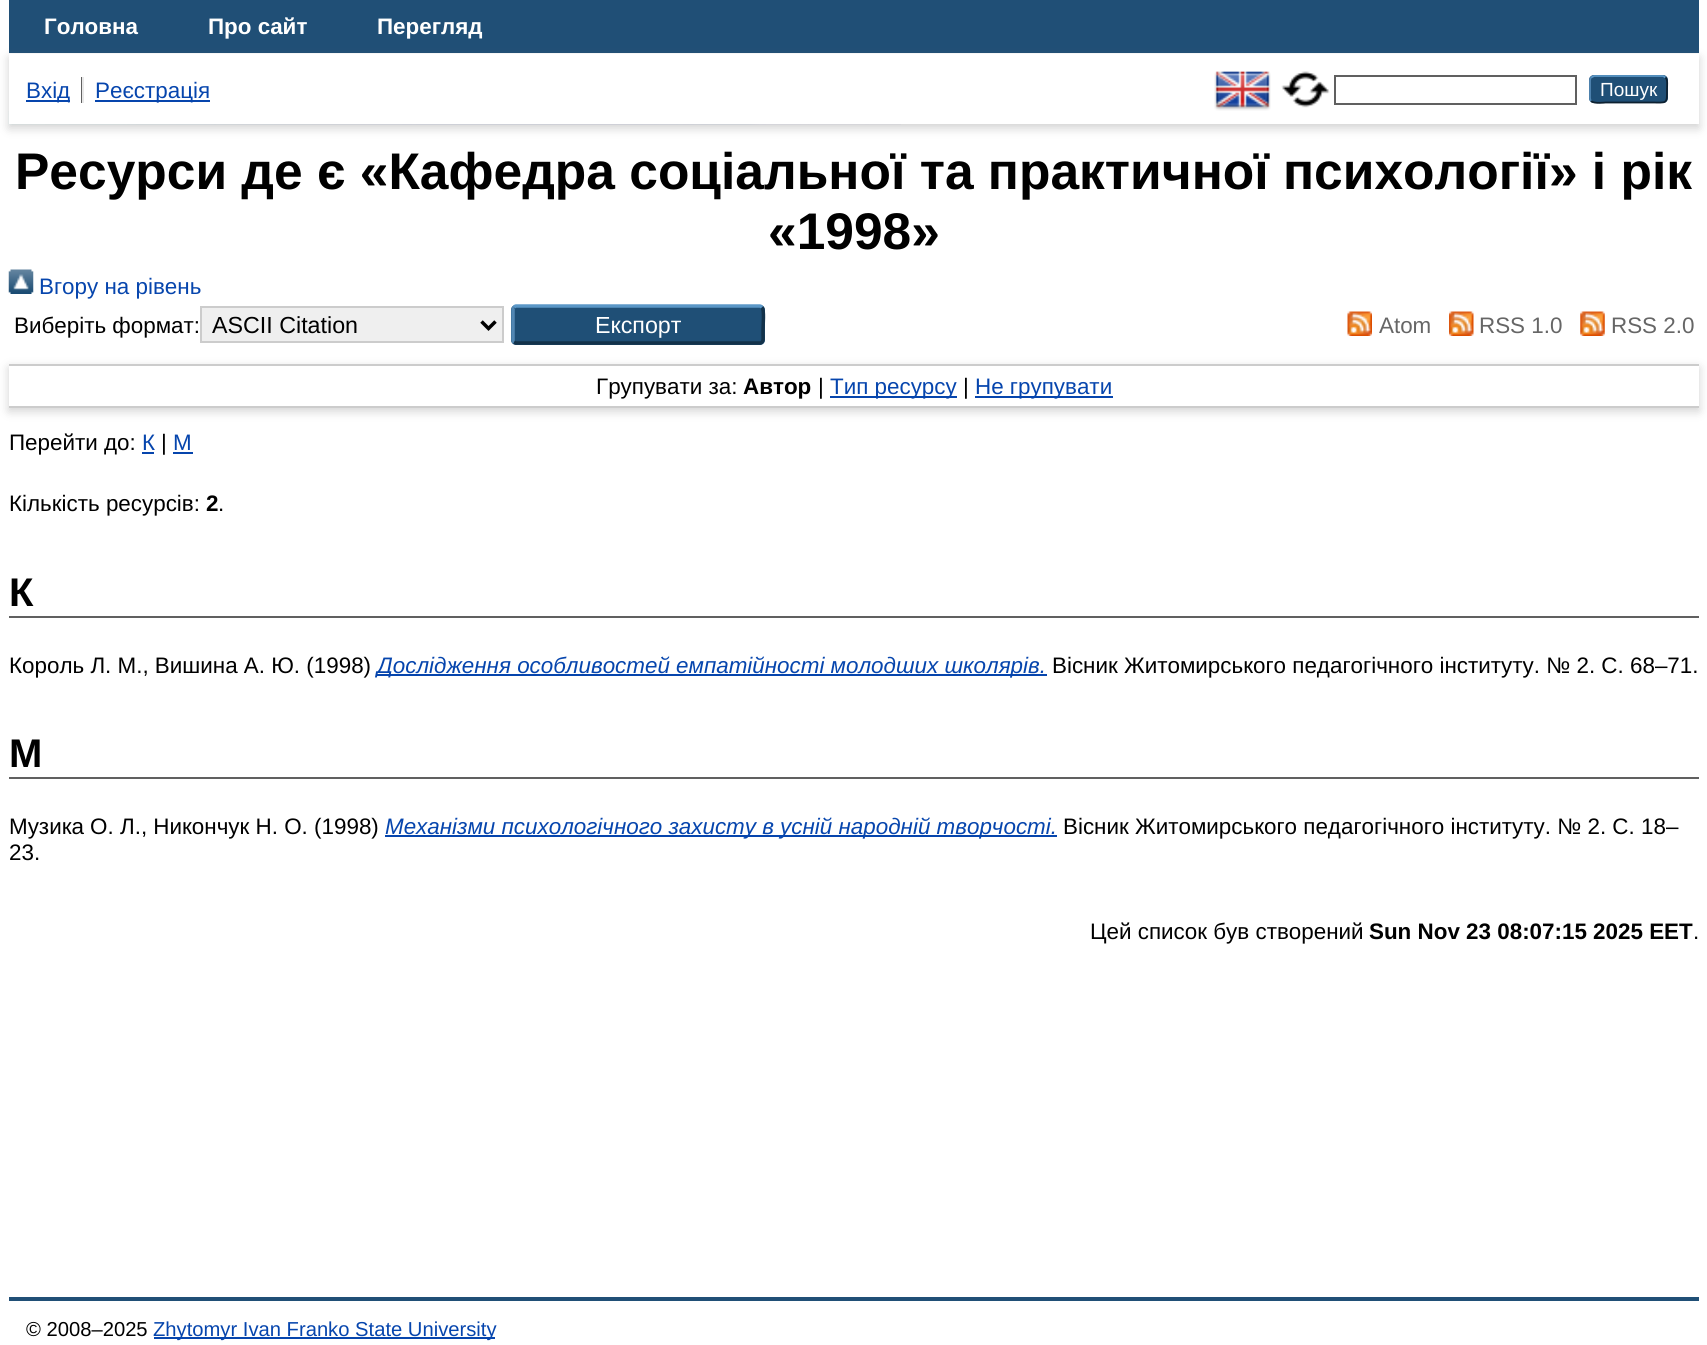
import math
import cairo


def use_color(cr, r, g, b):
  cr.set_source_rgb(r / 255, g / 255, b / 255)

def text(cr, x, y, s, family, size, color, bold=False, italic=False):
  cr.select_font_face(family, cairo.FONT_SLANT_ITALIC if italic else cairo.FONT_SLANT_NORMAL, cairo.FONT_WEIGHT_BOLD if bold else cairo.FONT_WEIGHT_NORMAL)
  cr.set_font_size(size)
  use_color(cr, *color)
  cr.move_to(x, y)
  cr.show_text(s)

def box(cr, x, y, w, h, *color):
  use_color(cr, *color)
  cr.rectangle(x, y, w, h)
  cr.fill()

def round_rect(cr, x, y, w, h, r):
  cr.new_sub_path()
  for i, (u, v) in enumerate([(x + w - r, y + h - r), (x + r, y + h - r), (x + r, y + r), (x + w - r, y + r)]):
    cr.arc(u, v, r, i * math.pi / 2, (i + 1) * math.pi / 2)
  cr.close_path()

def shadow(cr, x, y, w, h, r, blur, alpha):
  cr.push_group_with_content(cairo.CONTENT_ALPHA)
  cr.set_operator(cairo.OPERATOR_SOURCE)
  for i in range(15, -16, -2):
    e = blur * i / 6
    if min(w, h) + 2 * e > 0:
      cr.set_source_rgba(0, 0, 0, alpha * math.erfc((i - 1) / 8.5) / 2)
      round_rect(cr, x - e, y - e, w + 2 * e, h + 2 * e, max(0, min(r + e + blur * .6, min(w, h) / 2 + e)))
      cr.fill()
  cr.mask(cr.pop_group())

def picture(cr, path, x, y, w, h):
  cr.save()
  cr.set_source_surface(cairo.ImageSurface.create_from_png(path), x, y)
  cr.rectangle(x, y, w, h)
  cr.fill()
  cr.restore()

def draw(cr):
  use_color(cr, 255, 255, 255)
  cr.paint()
  picture(cr, "img_01.png", 8, 111, 893, 14)
  box(cr, 9, 0, 1690, 53, 32, 79, 118)
  use_color(cr, 100, 100, 100)
  shadow(cr, 9, 58, 1690, 70, 0, 5, 0.3)
  box(cr, 9, 54, 1690, 70, 255, 255, 255)
  box(cr, 81, 77, 1, 26, 96, 96, 96)
  box(cr, 26, 100, 44, 2, 6, 69, 173)
  box(cr, 82, 77, 2, 26, 232, 232, 232)
  box(cr, 95, 100, 115, 2, 6, 69, 173)
  picture(cr, "img_02.png", 1214, 71, 57, 40)
  picture(cr, "img_03.png", 1281, 71, 49, 37)
  cr.rectangle(1335, 76, 241, 28)
  use_color(cr, 96, 96, 96)
  cr.stroke()
  use_color(cr, 31, 79, 118)
  round_rect(cr, 1589, 75, 79, 28, 5)
  cr.fill()
  cr.new_path()
  cr.move_to(1591, 77.5)
  cr.line_to(1594, 76)
  cr.line_to(1663, 76)
  cr.line_to(1665.5, 77.5)
  use_color(cr, 91, 151, 199)
  cr.set_line_width(1.8)
  cr.stroke()
  cr.new_path()
  cr.move_to(1665.5, 77.5)
  cr.curve_to(1668, 80, 1667, 86, 1667, 89)
  cr.curve_to(1667, 104.5, 1667.5, 102.5, 1651, 102.5)
  cr.line_to(1605.5, 102.5)
  cr.curve_to(1605, 102.5, 1594, 104, 1591, 101)
  use_color(cr, 13, 33, 49)
  cr.stroke()
  cr.new_path()
  cr.move_to(1591, 101)
  cr.curve_to(1590.5, 100.5, 1590, 99, 1590, 98)
  cr.line_to(1590, 80.5)
  cr.curve_to(1590, 79.5, 1590.5, 78, 1591, 77.5)
  use_color(cr, 82, 135, 179)
  cr.stroke()
  picture(cr, "img_04.png", 8, 269, 26, 25)
  use_color(cr, 239, 239, 239)
  cr.rectangle(201, 307, 302, 35)
  cr.fill_preserve()
  use_color(cr, 204, 204, 204)
  cr.set_line_width(2)
  cr.stroke()
  cr.new_path()
  cr.move_to(481.5, 321.5)
  cr.line_to(488.5, 328.5)
  cr.line_to(495.5, 321.5)
  use_color(cr, 0, 0, 0)
  cr.set_line_width(3.5)
  cr.stroke()
  use_color(cr, 31, 79, 118)
  round_rect(cr, 511, 305, 254, 40, 5)
  cr.fill()
  cr.new_path()
  cr.move_to(514, 307.5)
  cr.curve_to(514.5, 306.5, 515.5, 306, 516, 306)
  cr.line_to(759.5, 306)
  cr.curve_to(760.5, 306, 761.5, 306.5, 762, 307.5)
  use_color(cr, 91, 151, 199)
  cr.stroke()
  cr.new_path()
  cr.move_to(762, 307.5)
  cr.curve_to(764.5, 309.5, 763, 326, 763, 329.5)
  cr.line_to(763, 334.5)
  cr.curve_to(763, 337, 764, 342, 760.5, 343)
  cr.line_to(516, 343)
  cr.line_to(514, 342)
  use_color(cr, 19, 50, 74)
  cr.stroke()
  cr.new_path()
  cr.move_to(514, 342)
  cr.curve_to(513, 341.5, 513, 340.5, 513, 339.5)
  cr.line_to(513, 310)
  cr.curve_to(513, 309, 513, 308, 514, 307.5)
  use_color(cr, 82, 135, 179)
  cr.stroke()
  picture(cr, "img_05.png", 1347, 311, 25, 25)
  picture(cr, "img_06.png", 1449, 311, 25, 25)
  picture(cr, "img_07.png", 1580, 311, 25, 25)
  use_color(cr, 100, 100, 100)
  shadow(cr, 9, 368, 1690, 43, 0, 5, 0.3)
  box(cr, 9, 366, 1690, 40, 255, 255, 255)
  box(cr, 9, 364, 1690, 2, 204, 204, 204)
  box(cr, 9, 406, 1690, 2, 204, 204, 204)
  box(cr, 830, 396, 127, 2, 6, 69, 173)
  box(cr, 975, 396, 138, 2, 6, 69, 173)
  box(cr, 142, 452, 12, 2, 6, 69, 173)
  box(cr, 173, 452, 20, 2, 6, 69, 173)
  box(cr, 9, 616, 1690, 2, 96, 96, 96)
  box(cr, 376, 674, 671, 2, 6, 69, 173)
  box(cr, 9, 777, 1690, 2, 96, 96, 96)
  box(cr, 385, 835, 672, 2, 6, 69, 173)
  box(cr, 9, 1297, 1690, 4, 32, 79, 118)
  box(cr, 154, 1337, 341, 2, 6, 69, 173)
  text(cr, 44, 34, "Головна", "Liberation Sans", 22.4, (255, 255, 255), bold=True)
  text(cr, 208, 34, "Про сайт", "Liberation Sans", 22.4, (255, 255, 255), bold=True)
  text(cr, 377, 34, "Перегляд", "Liberation Sans", 22.4, (255, 255, 255), bold=True)
  text(cr, 26, 98, "Вхід", "Liberation Sans", 22.4, (6, 69, 173))
  text(cr, 95, 98, "Реєстрація", "Liberation Sans", 22.4, (6, 69, 173))
  text(cr, 1600, 96, "Пошук", "Liberation Sans", 19, (255, 255, 255))
  text(cr, 15, 189, "Ресурси де є «Кафедра соціальної та практичної психології» і рік", "Liberation Sans", 51.5, (0, 0, 0), bold=True)
  text(cr, 768, 249, "«1998»", "Liberation Sans", 51.5, (0, 0, 0), bold=True)
  text(cr, 39, 294, "Вгору на рівень", "Liberation Sans", 22.4, (6, 69, 173))
  text(cr, 14, 333, "Виберіть формат:", "Liberation Sans", 22.4, (0, 0, 0))
  text(cr, 212, 333, "ASCII Citation", "Liberation Sans", 23.25, (0, 0, 0))
  text(cr, 595, 333, "Експорт", "Liberation Sans", 23.25, (255, 255, 255))
  text(cr, 1379, 333, "Atom", "Liberation Sans", 22.4, (102, 102, 102))
  text(cr, 1479, 333, "RSS 1.0", "Liberation Sans", 22.4, (102, 102, 102))
  text(cr, 1611, 333, "RSS 2.0", "Liberation Sans", 22.4, (102, 102, 102))
  text(cr, 596, 394, "Групувати за:", "Liberation Sans", 22.4, (0, 0, 0))
  text(cr, 743, 394, "Автор", "Liberation Sans", 22.4, (0, 0, 0), bold=True)
  text(cr, 818, 394, "|", "Liberation Sans", 22.4, (0, 0, 0))
  text(cr, 830, 394, "Тип ресурсу", "Liberation Sans", 22.4, (6, 69, 173))
  text(cr, 963, 394, "|", "Liberation Sans", 22.4, (0, 0, 0))
  text(cr, 975, 394, "Не групувати", "Liberation Sans", 22.4, (6, 69, 173))
  text(cr, 9, 450, "Перейти до:", "Liberation Sans", 22.4, (0, 0, 0))
  text(cr, 142, 450, "К", "Liberation Sans", 22.4, (6, 69, 173))
  text(cr, 161, 450, "|", "Liberation Sans", 22.4, (0, 0, 0))
  text(cr, 173, 450, "М", "Liberation Sans", 22.4, (6, 69, 173))
  text(cr, 9, 511, "Кількість ресурсів:", "Liberation Sans", 22.4, (0, 0, 0))
  text(cr, 206, 511, "2", "Liberation Sans", 22.4, (0, 0, 0), bold=True)
  text(cr, 218, 511, ".", "Liberation Sans", 22.4, (0, 0, 0))
  text(cr, 9, 606, "К", "Liberation Sans", 40, (0, 0, 0), bold=True)
  text(cr, 9, 673, "Король Л. М., Вишина А. Ю. (1998)", "Liberation Sans", 22.4, (0, 0, 0))
  text(cr, 377, 673, "Дослідження особливостей емпатійності молодших школярів.", "Liberation Sans", 22.4, (6, 69, 173), italic=True)
  text(cr, 1052, 673, "Вісник Житомирського педагогічного інституту. № 2. С. 68–71.", "Liberation Sans", 22.4, (0, 0, 0))
  text(cr, 9, 767, "М", "Liberation Sans", 40, (0, 0, 0), bold=True)
  text(cr, 9, 834, "Музика О. Л., Никончук Н. О. (1998)", "Liberation Sans", 22.4, (0, 0, 0))
  text(cr, 385, 834, "Механізми психологічного захисту в усній народній творчості.", "Liberation Sans", 22.4, (6, 69, 173), italic=True)
  text(cr, 1063, 834, "Вісник Житомирського педагогічного інституту. № 2. С. 18–", "Liberation Sans", 22.4, (0, 0, 0))
  text(cr, 9, 860, "23.", "Liberation Sans", 22.4, (0, 0, 0))
  text(cr, 1090, 939, "Цей список був створений", "Liberation Sans", 22.4, (0, 0, 0))
  text(cr, 1369, 939, "Sun Nov 23 08:07:15 2025 EET", "Liberation Sans", 22.4, (0, 0, 0), bold=True)
  text(cr, 1693, 939, ".", "Liberation Sans", 22.4, (0, 0, 0))
  text(cr, 26, 1336, "© 2008–2025", "Liberation Sans", 20.2, (0, 0, 0))
  text(cr, 153, 1336, "Zhytomyr Ivan Franko State University", "Liberation Sans", 20.2, (6, 69, 173))


surface = cairo.ImageSurface(cairo.FORMAT_RGB24, 1707, 1345)
cr = cairo.Context(surface)
options = cairo.FontOptions()
options.set_hint_metrics(cairo.HINT_METRICS_OFF)
options.set_hint_style(cairo.HINT_STYLE_NONE)
cr.set_font_options(options)
cr.set_miter_limit(4)
draw(cr)
surface.write_to_png("out.png")
